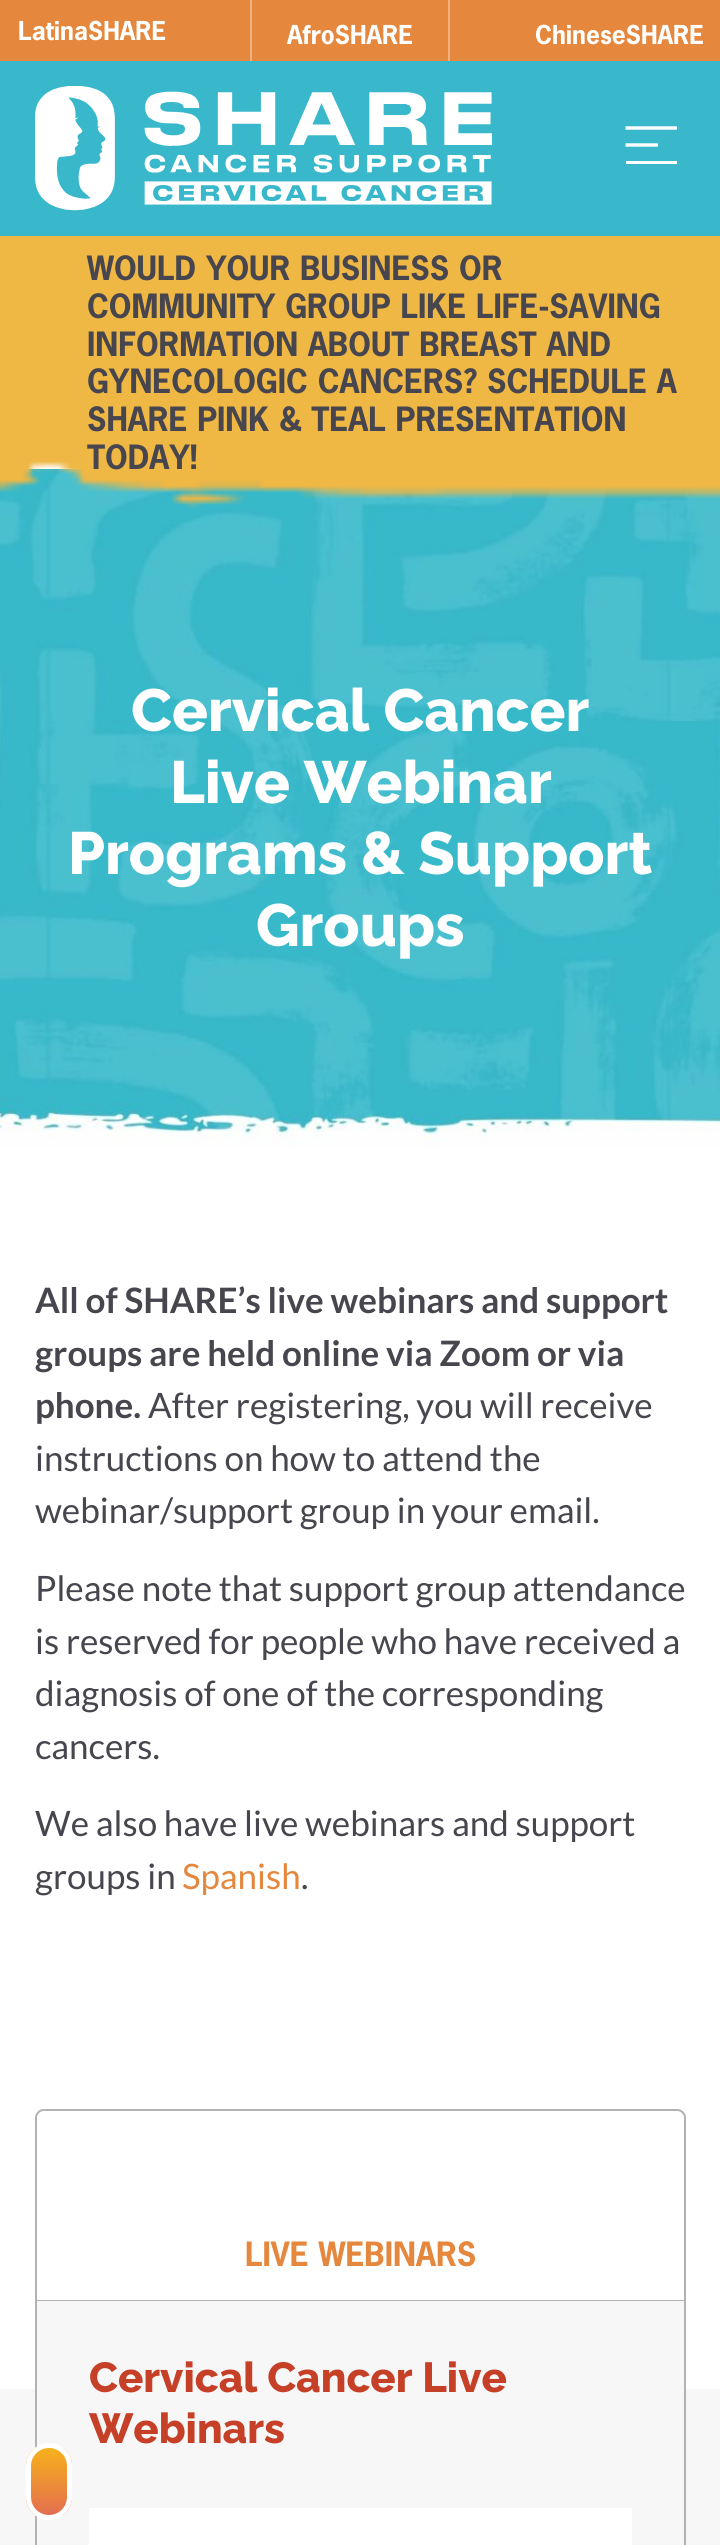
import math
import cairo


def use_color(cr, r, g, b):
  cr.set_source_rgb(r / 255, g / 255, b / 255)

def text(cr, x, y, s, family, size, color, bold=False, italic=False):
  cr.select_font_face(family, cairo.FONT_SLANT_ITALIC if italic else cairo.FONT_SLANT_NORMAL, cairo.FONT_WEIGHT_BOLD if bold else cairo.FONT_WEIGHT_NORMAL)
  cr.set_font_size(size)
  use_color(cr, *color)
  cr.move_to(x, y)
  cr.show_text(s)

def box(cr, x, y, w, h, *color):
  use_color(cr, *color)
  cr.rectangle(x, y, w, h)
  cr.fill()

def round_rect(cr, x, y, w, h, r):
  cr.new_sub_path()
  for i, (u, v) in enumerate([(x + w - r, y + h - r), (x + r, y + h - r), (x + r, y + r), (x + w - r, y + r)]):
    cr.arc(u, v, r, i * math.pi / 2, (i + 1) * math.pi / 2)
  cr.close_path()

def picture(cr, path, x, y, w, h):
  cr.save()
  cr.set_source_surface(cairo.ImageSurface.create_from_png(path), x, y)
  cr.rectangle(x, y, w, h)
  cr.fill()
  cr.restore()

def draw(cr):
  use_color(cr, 255, 255, 255)
  cr.paint()
  box(cr, 0, 0, 720, 61, 229, 135, 61)
  box(cr, 448, 0, 2, 61, 238, 177, 129)
  box(cr, 250, 0, 2, 61, 238, 177, 129)
  box(cr, 0, 61, 720, 175, 57, 184, 203)
  picture(cr, "img_01.png", 35, 86, 457, 125)
  box(cr, 626, 161, 51, 3, 255, 255, 255)
  cr.new_path()
  cr.move_to(625.5, 145)
  cr.line_to(658, 145)
  cr.move_to(625.5, 128)
  cr.line_to(677, 128)
  cr.set_line_width(3.4)
  cr.stroke()
  picture(cr, "img_03.png", 0, 469, 720, 678)
  picture(cr, "img_02.png", 0, 236, 720, 272)
  box(cr, 0, 2389, 720, 156, 247, 247, 247)
  round_rect(cr, 36, 2110, 649, 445, 8)
  use_color(cr, 178, 178, 178)
  cr.set_line_width(2)
  cr.stroke()
  cr.save()
  round_rect(cr, 26, 2443, 46, 77, 23)
  cr.clip()
  gradient = cairo.LinearGradient(49, 2448, 49, 2515)
  gradient.add_color_stop_rgba(0, 0.969, 0.694, 0.106, 1)
  gradient.add_color_stop_rgba(1, 0.89, 0.435, 0.314, 1)
  cr.set_source(gradient)
  cr.rectangle(26, 2448, 46, 67)
  cr.fill()
  cr.restore()
  round_rect(cr, 28.5, 2445.5, 41, 72, 20.5)
  use_color(cr, 255, 255, 255)
  cr.set_line_width(5)
  cr.stroke()
  cr.new_path()
  cr.move_to(46, 2111)
  cr.line_to(675, 2111)
  cr.curve_to(680, 2111, 684, 2115, 684, 2120)
  cr.line_to(684, 2300)
  cr.line_to(37, 2300)
  cr.line_to(37, 2120)
  cr.curve_to(37, 2115, 41, 2111, 46, 2111)
  cr.close_path()
  cr.fill()
  box(cr, 37, 2300, 647, 1, 178, 178, 178)
  box(cr, 37, 2301, 647, 88, 247, 247, 247)
  box(cr, 89, 2508, 543, 37, 255, 255, 255)
  text(cr, 18, 40, "LatinaSHARE", "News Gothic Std", 24.5, (255, 255, 255), bold=True)
  text(cr, 287, 44, "AfroSHARE", "News Gothic Std", 24.5, (255, 255, 255), bold=True)
  text(cr, 535, 44, "ChineseSHARE", "News Gothic Std", 24.5, (255, 255, 255), bold=True)
  text(cr, 87, 280, "WOULD YOUR BUSINESS OR", "News Gothic Std", 31.5, (71, 70, 78), bold=True)
  text(cr, 87, 318, "COMMUNITY GROUP LIKE LIFE-SAVING", "News Gothic Std", 31.5, (71, 70, 78), bold=True)
  text(cr, 87, 356, "INFORMATION ABOUT BREAST AND", "News Gothic Std", 31.5, (71, 70, 78), bold=True)
  text(cr, 87, 393, "GYNECOLOGIC CANCERS? SCHEDULE A", "News Gothic Std", 31.5, (71, 70, 78), bold=True)
  text(cr, 87, 431, "SHARE PINK & TEAL PRESENTATION", "News Gothic Std", 31.5, (71, 70, 78), bold=True)
  text(cr, 87, 469, "TODAY!", "News Gothic Std", 31.5, (71, 70, 78), bold=True)
  text(cr, 131, 731, "Cervical Cancer", "Raleway ExtraBold", 59.5, (255, 255, 255))
  text(cr, 170, 803, "Live Webinar", "Raleway ExtraBold", 59.5, (255, 255, 255))
  text(cr, 68, 874, "Programs & Support", "Raleway ExtraBold", 59.5, (255, 255, 255))
  text(cr, 256, 946, "Groups", "Raleway ExtraBold", 59.5, (255, 255, 255))
  text(cr, 35, 1313, "All of SHARE’s live webinars and support", "Lato", 35, (71, 70, 78), bold=True)
  text(cr, 35, 1366, "groups are held online via Zoom or via", "Lato", 35, (71, 70, 78), bold=True)
  text(cr, 35, 1418, "phone.", "Lato", 35, (71, 70, 78), bold=True)
  text(cr, 148, 1418, "After registering, you will receive", "Lato", 35, (71, 70, 78))
  text(cr, 35, 1471, "instructions on how to attend the", "Lato", 35, (71, 70, 78))
  text(cr, 35, 1523, "webinar/support group in your email.", "Lato", 35, (71, 70, 78))
  text(cr, 35, 1601, "Please note that support group attendance", "Lato", 35, (71, 70, 78))
  text(cr, 35, 1654, "is reserved for people who have received a", "Lato", 35, (71, 70, 78))
  text(cr, 35, 1706, "diagnosis of one of the corresponding", "Lato", 35, (71, 70, 78))
  text(cr, 35, 1759, "cancers.", "Lato", 35, (71, 70, 78))
  text(cr, 35, 1836, "We also have live webinars and support", "Lato", 35, (71, 70, 78))
  text(cr, 35, 1889, "groups in", "Lato", 35, (71, 70, 78))
  text(cr, 182, 1889, "Spanish", "Lato", 35, (229, 135, 61))
  text(cr, 301, 1889, ".", "Lato", 35, (71, 70, 78))
  text(cr, 245, 2266, "LIVE WEBINARS", "News Gothic Std", 31.5, (229, 135, 61), bold=True)
  text(cr, 89, 2392, "Cervical Cancer Live", "Raleway ExtraBold", 42, (198, 64, 39))
  text(cr, 89, 2443, "Webinars", "Raleway ExtraBold", 42, (198, 64, 39))


surface = cairo.ImageSurface(cairo.FORMAT_RGB24, 720, 2545)
cr = cairo.Context(surface)
options = cairo.FontOptions()
options.set_hint_metrics(cairo.HINT_METRICS_OFF)
options.set_hint_style(cairo.HINT_STYLE_NONE)
cr.set_font_options(options)
cr.set_miter_limit(4)
draw(cr)
surface.write_to_png("out.png")
